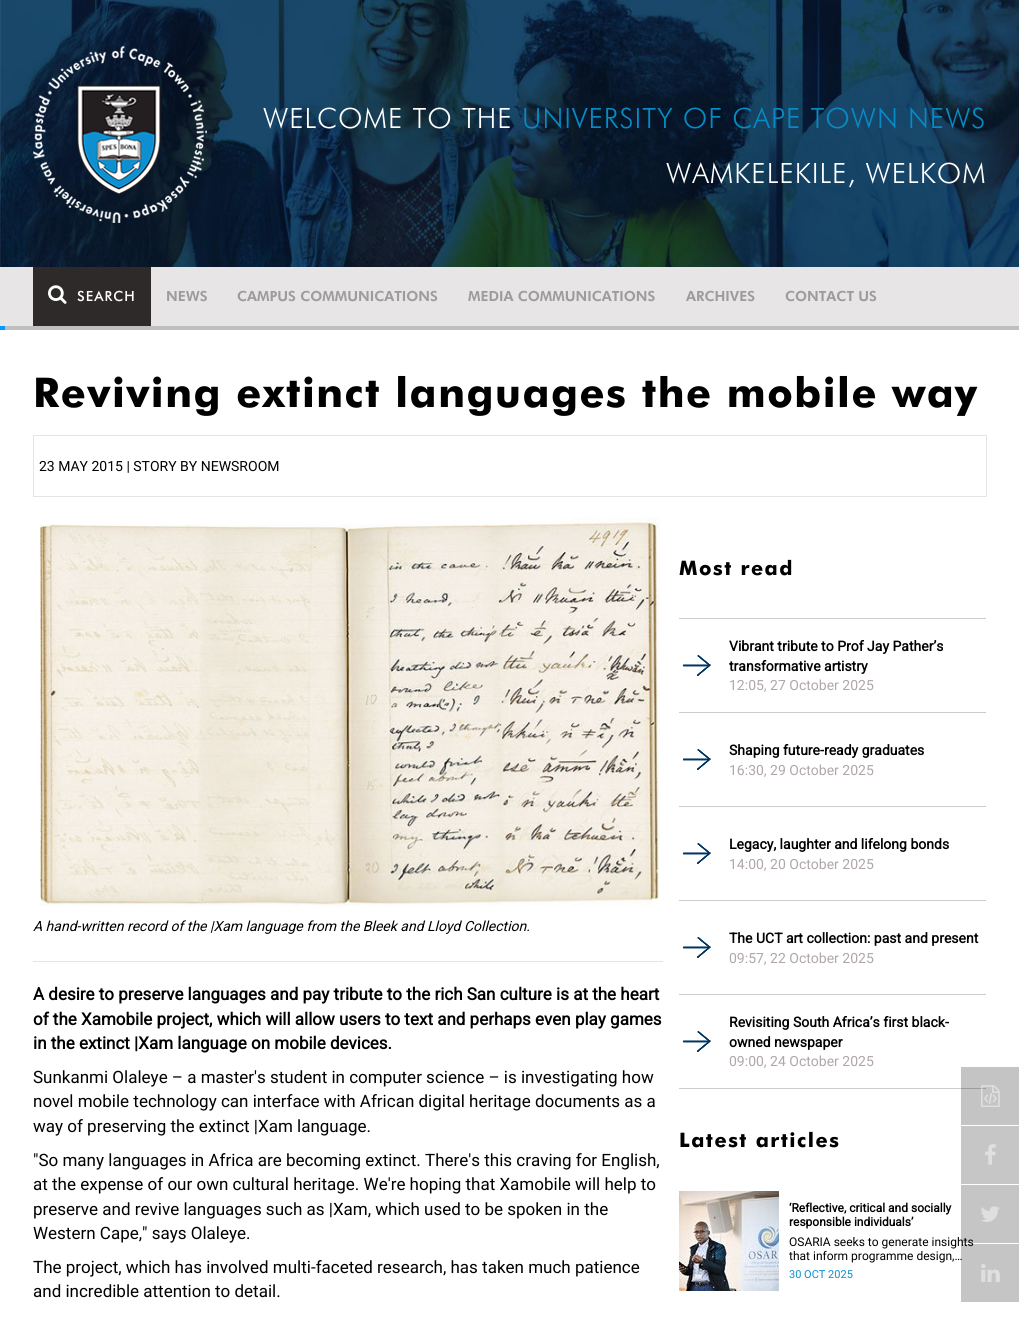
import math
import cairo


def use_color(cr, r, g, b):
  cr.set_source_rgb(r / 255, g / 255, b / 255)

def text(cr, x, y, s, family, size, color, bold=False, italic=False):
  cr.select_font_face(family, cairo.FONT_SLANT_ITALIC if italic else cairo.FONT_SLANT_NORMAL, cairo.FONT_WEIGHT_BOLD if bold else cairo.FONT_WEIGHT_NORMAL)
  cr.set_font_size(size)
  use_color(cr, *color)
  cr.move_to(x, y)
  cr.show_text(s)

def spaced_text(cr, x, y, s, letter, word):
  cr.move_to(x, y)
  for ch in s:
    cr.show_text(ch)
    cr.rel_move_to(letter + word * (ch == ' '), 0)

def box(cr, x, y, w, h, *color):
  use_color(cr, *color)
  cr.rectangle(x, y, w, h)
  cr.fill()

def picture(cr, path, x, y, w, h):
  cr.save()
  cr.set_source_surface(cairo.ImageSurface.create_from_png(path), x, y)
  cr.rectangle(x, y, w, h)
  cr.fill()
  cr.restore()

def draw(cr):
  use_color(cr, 255, 255, 255)
  cr.paint()
  box(cr, 961, 1067, 58, 58, 196, 196, 196)
  picture(cr, "img_01.png", 0, 0, 1019, 267)
  picture(cr, "img_02.png", 33, 46, 174, 177)
  box(cr, 0, 267, 1019, 59, 231, 229, 229)
  box(cr, 33, 267, 118, 59, 46, 42, 42)
  picture(cr, "img_03.png", 48, 285, 19, 19)
  box(cr, 0, 326, 1019, 4, 191, 191, 191)
  box(cr, 0, 326, 5, 4, 0, 153, 255)
  cr.rectangle(33.5, 435.5, 953, 61)
  use_color(cr, 228, 228, 228)
  cr.set_line_width(1)
  cr.stroke()
  picture(cr, "img_04.png", 40, 517, 620, 389)
  box(cr, 33, 961, 630, 1, 228, 228, 228)
  picture(cr, "img_05.png", 683, 655, 28, 21)
  box(cr, 679, 618, 307, 1, 204, 204, 204)
  box(cr, 679, 712, 307, 1, 204, 204, 204)
  picture(cr, "img_05.png", 683, 749, 28, 21)
  box(cr, 679, 806, 307, 1, 204, 204, 204)
  picture(cr, "img_05.png", 683, 843, 28, 21)
  box(cr, 679, 900, 307, 1, 204, 204, 204)
  picture(cr, "img_05.png", 683, 937, 28, 21)
  box(cr, 679, 994, 307, 1, 204, 204, 204)
  picture(cr, "img_05.png", 683, 1031, 28, 21)
  box(cr, 679, 1088, 282, 1, 204, 204, 204)
  box(cr, 961, 1088, 25, 1, 157, 157, 157)
  picture(cr, "img_06.png", 679, 1191, 100, 100)
  picture(cr, "img_07.png", 981, 1085, 19, 22)
  box(cr, 961, 1126, 58, 58, 198, 198, 198)
  picture(cr, "img_08.png", 985, 1144, 11, 21)
  cr.select_font_face("Futura Light")
  cr.set_font_size(28)
  use_color(cr, 255, 255, 255)
  spaced_text(cr, 263, 128, "WELCOME TO THE", 1, 0)
  use_color(cr, 6, 139, 198)
  spaced_text(cr, 522, 128, "UNIVERSITY OF CAPE TOWN NEWS", 1, 0)
  use_color(cr, 255, 255, 255)
  spaced_text(cr, 666, 183, "WAMKELEKILE, WELKOM", 1, 0)
  cr.select_font_face("Futura Medium")
  cr.set_font_size(14)
  spaced_text(cr, 77, 301, "SEARCH", 1, 0)
  text(cr, 166, 301, "NEWS", "Futura Black", 14, (156, 156, 156))
  text(cr, 237, 301, "CAMPUS COMMUNICATIONS", "Futura Black", 14, (156, 156, 156))
  text(cr, 468, 301, "MEDIA COMMUNICATIONS", "Futura Black", 14, (156, 156, 156))
  text(cr, 686, 301, "ARCHIVES", "Futura Black", 14, (156, 156, 156))
  text(cr, 785, 301, "CONTACT US", "Futura Black", 14, (156, 156, 156))
  cr.select_font_face("Futura", cairo.FONT_SLANT_NORMAL, cairo.FONT_WEIGHT_BOLD)
  cr.set_font_size(41)
  use_color(cr, 0, 0, 0)
  spaced_text(cr, 33, 407, "Reviving extinct languages the mobile way", 1.5, 0)
  text(cr, 39, 471, "23 MAY 2015 | STORY BY NEWSROOM", "Roboto", 14, (0, 0, 0))
  text(cr, 33, 931, "A hand-written record of the |Xam language from the Bleek and Lloyd Collection.", "Roboto", 14, (0, 0, 0), italic=True)
  text(cr, 33, 1000, "A desire to preserve languages and pay tribute to the rich San culture is at the heart", "Roboto", 17, (0, 0, 0), bold=True)
  text(cr, 33, 1025, "of the Xamobile project, which will allow users to text and perhaps even play games", "Roboto", 17, (0, 0, 0), bold=True)
  text(cr, 33, 1049, "in the extinct |Xam language on mobile devices.", "Roboto", 17, (0, 0, 0), bold=True)
  text(cr, 33, 1083, "Sunkanmi Olaleye – a master's student in computer science – is investigating how", "Roboto", 17, (0, 0, 0))
  text(cr, 33, 1107, "novel mobile technology can interface with African digital heritage documents as a", "Roboto", 17, (0, 0, 0))
  text(cr, 33, 1132, "way of preserving the extinct |Xam language.", "Roboto", 17, (0, 0, 0))
  text(cr, 33, 1166, "\"So many languages in Africa are becoming extinct. There's this craving for English,", "Roboto", 17, (0, 0, 0))
  text(cr, 33, 1190, "at the expense of our own cultural heritage. We're hoping that Xamobile will help to", "Roboto", 17, (0, 0, 0))
  text(cr, 33, 1215, "preserve and revive languages such as |Xam, which used to be spoken in the", "Roboto", 17, (0, 0, 0))
  text(cr, 33, 1239, "Western Cape,\" says Olaleye.", "Roboto", 17, (0, 0, 0))
  text(cr, 33, 1273, "The project, which has involved multi-faceted research, has taken much patience", "Roboto", 17, (0, 0, 0))
  text(cr, 33, 1297, "and incredible attention to detail.", "Roboto", 17, (0, 0, 0))
  cr.select_font_face("Futura", cairo.FONT_SLANT_NORMAL, cairo.FONT_WEIGHT_BOLD)
  cr.set_font_size(20)
  spaced_text(cr, 679, 575, "Most read", 1.5, 0)
  text(cr, 729, 651, "Vibrant tribute to Prof Jay Pather’s", "Roboto", 14, (0, 0, 0), bold=True)
  text(cr, 729, 671, "transformative artistry", "Roboto", 14, (0, 0, 0), bold=True)
  text(cr, 729, 690, "12:05, 27 October 2025", "Roboto", 14, (176, 167, 167))
  text(cr, 729, 755, "Shaping future-ready graduates", "Roboto", 14, (0, 0, 0), bold=True)
  text(cr, 729, 775, "16:30, 29 October 2025", "Roboto", 14, (176, 167, 167))
  text(cr, 729, 849, "Legacy, laughter and lifelong bonds", "Roboto", 14, (0, 0, 0), bold=True)
  text(cr, 729, 869, "14:00, 20 October 2025", "Roboto", 14, (176, 167, 167))
  text(cr, 729, 943, "The UCT art collection: past and present", "Roboto", 14, (0, 0, 0), bold=True)
  text(cr, 729, 963, "09:57, 22 October 2025", "Roboto", 14, (176, 167, 167))
  text(cr, 729, 1027, "Revisiting South Africa’s first black-", "Roboto", 14, (0, 0, 0), bold=True)
  text(cr, 729, 1047, "owned newspaper", "Roboto", 14, (0, 0, 0), bold=True)
  text(cr, 729, 1066, "09:00, 24 October 2025", "Roboto", 14, (176, 167, 167))
  cr.select_font_face("Futura", cairo.FONT_SLANT_NORMAL, cairo.FONT_WEIGHT_BOLD)
  cr.set_font_size(20)
  use_color(cr, 0, 0, 0)
  spaced_text(cr, 679, 1147, "Latest articles", 1.5, 0)
  text(cr, 789, 1212, "‘Reflective, critical and socially", "Roboto", 12, (0, 0, 0), bold=True)
  text(cr, 789, 1226, "responsible individuals’", "Roboto", 12, (0, 0, 0), bold=True)
  text(cr, 789, 1246, "OSARIA seeks to generate insights", "Roboto", 12, (0, 0, 0))
  text(cr, 789, 1260, "that inform programme design,…", "Roboto", 12, (0, 0, 0))
  text(cr, 789, 1278, "30 OCT 2025", "Roboto", 11, (14, 143, 207))
  cr.set_source_rgba(0, 0, 0, 0.23)
  cr.rectangle(961, 1185, 58, 58)
  cr.fill()
  picture(cr, "img_09.png", 981, 1206, 19, 16)
  cr.rectangle(961, 1244, 58, 58)
  cr.fill()
  picture(cr, "img_10.png", 981, 1264, 19, 18)


surface = cairo.ImageSurface(cairo.FORMAT_RGB24, 1019, 1322)
cr = cairo.Context(surface)
options = cairo.FontOptions()
options.set_hint_metrics(cairo.HINT_METRICS_OFF)
options.set_hint_style(cairo.HINT_STYLE_NONE)
cr.set_font_options(options)
cr.set_miter_limit(4)
draw(cr)
surface.write_to_png("out.png")
